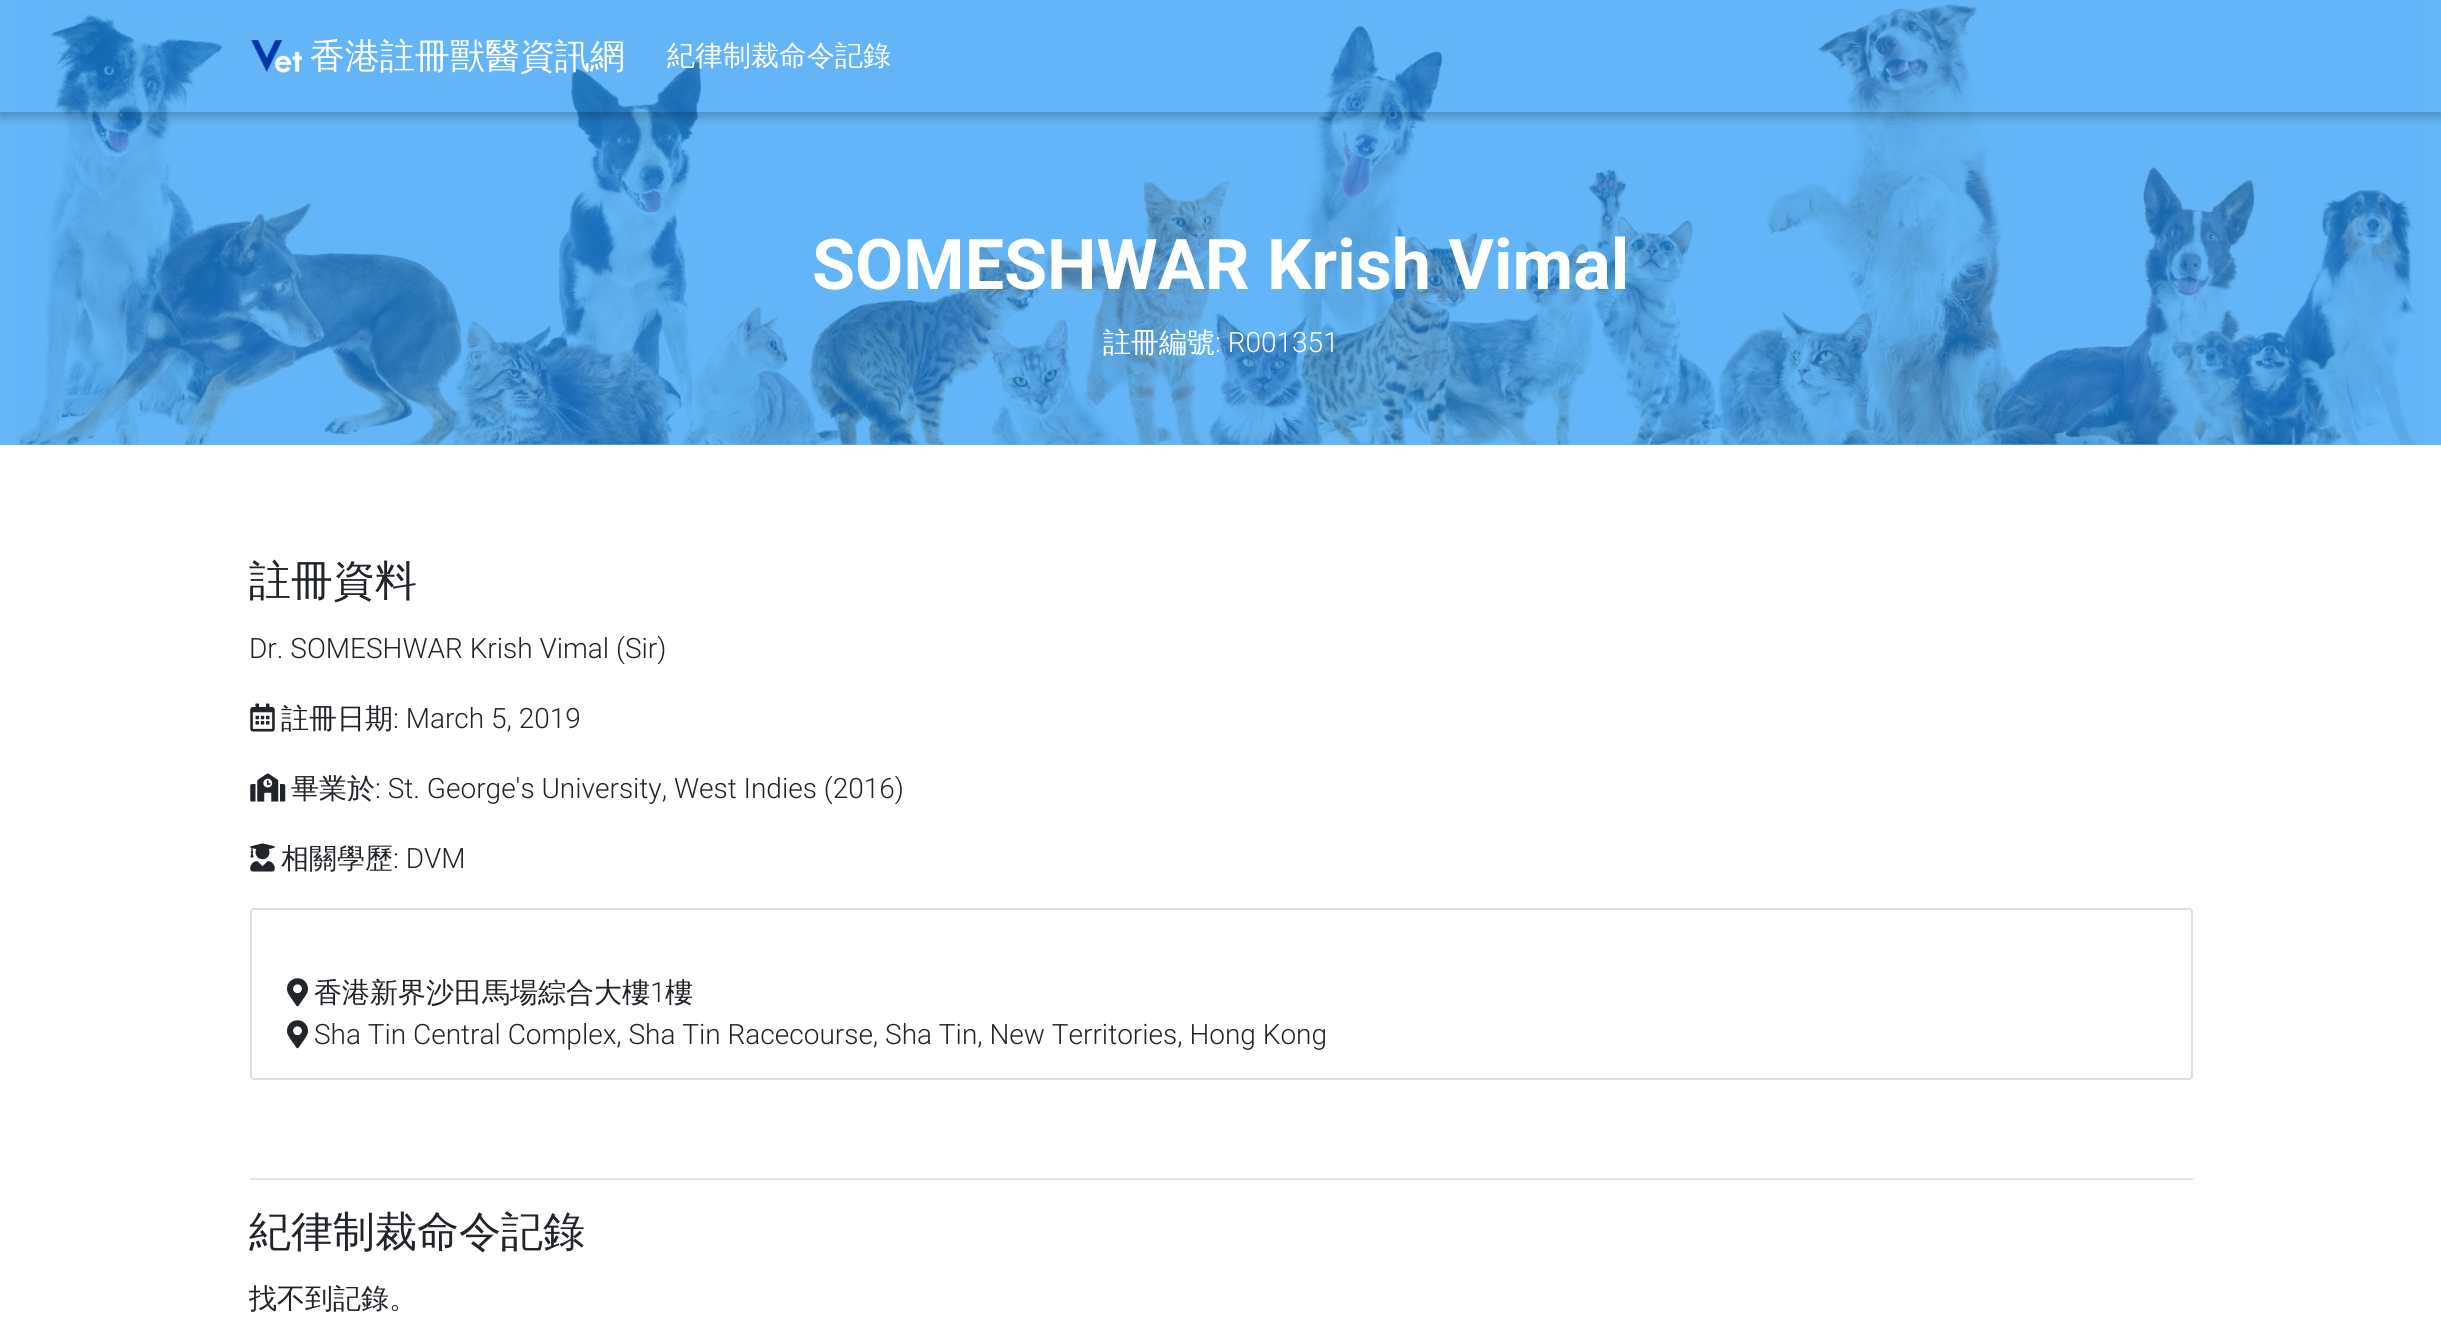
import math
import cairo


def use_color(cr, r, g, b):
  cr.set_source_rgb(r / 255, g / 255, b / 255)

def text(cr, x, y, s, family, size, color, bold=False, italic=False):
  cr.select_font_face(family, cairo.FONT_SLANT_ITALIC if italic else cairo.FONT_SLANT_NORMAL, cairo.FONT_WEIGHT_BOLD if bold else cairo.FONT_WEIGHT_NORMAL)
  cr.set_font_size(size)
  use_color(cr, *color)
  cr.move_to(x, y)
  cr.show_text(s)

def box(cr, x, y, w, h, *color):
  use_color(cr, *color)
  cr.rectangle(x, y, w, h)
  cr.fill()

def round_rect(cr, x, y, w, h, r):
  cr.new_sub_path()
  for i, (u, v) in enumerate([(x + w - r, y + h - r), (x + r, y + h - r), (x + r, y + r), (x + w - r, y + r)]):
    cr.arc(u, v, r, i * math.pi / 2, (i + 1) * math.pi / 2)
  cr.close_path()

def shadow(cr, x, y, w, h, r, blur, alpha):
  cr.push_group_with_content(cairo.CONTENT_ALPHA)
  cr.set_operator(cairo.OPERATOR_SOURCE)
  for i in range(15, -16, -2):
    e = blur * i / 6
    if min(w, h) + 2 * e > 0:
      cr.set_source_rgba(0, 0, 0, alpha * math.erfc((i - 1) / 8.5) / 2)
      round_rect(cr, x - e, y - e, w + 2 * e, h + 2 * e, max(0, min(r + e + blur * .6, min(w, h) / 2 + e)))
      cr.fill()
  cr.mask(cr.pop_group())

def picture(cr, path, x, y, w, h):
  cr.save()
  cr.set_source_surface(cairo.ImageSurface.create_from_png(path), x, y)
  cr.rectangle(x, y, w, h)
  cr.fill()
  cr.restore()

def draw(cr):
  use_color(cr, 255, 255, 255)
  cr.paint()
  box(cr, 0, 0, 2441, 445, 100, 182, 247)
  picture(cr, "img_02.png", 14, 0, 2409, 445)
  cr.save()
  cr.rectangle(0, 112, 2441, 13)
  cr.clip()
  use_color(cr, 0, 0, 0)
  shadow(cr, 0, 4, 2441, 112, 0, 9, 0.12)
  cr.restore()
  cr.save()
  cr.rectangle(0, 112, 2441, 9)
  cr.clip()
  use_color(cr, 0, 0, 0)
  shadow(cr, 0, 4, 2441, 112, 0, 4.5, 0.16)
  cr.restore()
  picture(cr, "img_01.png", 250, 39, 53, 34)
  picture(cr, "img_03.png", 250, 703, 25, 29)
  picture(cr, "img_04.png", 250, 773, 36, 29)
  picture(cr, "img_05.png", 250, 843, 25, 29)
  round_rect(cr, 251, 909, 1941, 170, 3)
  use_color(cr, 223, 223, 223)
  cr.stroke()
  picture(cr, "img_06.png", 287, 978, 21, 29)
  picture(cr, "img_06.png", 287, 1020, 21, 29)
  box(cr, 250, 1178, 1943, 2, 230, 230, 230)
  text(cr, 310, 68, "香港註冊獸醫資訊網", "WenQuanYi Zen Hei Medium", 35, (255, 255, 255))
  text(cr, 667, 65, "紀律制裁命令記錄", "WenQuanYi Zen Hei Medium", 28, (255, 255, 255))
  text(cr, 812, 289, "SOMESHWAR Krish Vimal", "Roboto", 70, (255, 255, 255), bold=True)
  text(cr, 1103, 352, "註冊編號", "WenQuanYi Zen Hei Medium", 28, (255, 255, 255))
  text(cr, 1215, 352, ": R001351", "Roboto Light", 28, (255, 255, 255))
  text(cr, 249, 595, "註冊資料", "WenQuanYi Zen Hei Medium", 42, (33, 37, 41))
  text(cr, 249, 658, "Dr. SOMESHWAR Krish Vimal (Sir)", "Roboto Light", 28, (33, 37, 41))
  text(cr, 281, 728, "註冊日期", "WenQuanYi Zen Hei Medium", 28, (33, 37, 41))
  text(cr, 393, 728, ": March 5, 2019", "Roboto Light", 28, (33, 37, 41))
  text(cr, 291, 798, "畢業於", "WenQuanYi Zen Hei Medium", 28, (33, 37, 41))
  text(cr, 375, 798, ": St. George's University, West Indies (2016)", "Roboto Light", 28, (33, 37, 41))
  text(cr, 281, 868, "相關學歷", "WenQuanYi Zen Hei Medium", 28, (33, 37, 41))
  text(cr, 393, 868, ": DVM", "Roboto Light", 28, (33, 37, 41))
  text(cr, 314, 1002, "香港新界沙田馬場綜合大樓", "WenQuanYi Zen Hei Medium", 28, (33, 37, 41))
  text(cr, 650, 1002, "1", "Roboto Light", 28, (33, 37, 41))
  text(cr, 665, 1002, "樓", "WenQuanYi Zen Hei Medium", 28, (33, 37, 41))
  text(cr, 314, 1044, "Sha Tin Central Complex, Sha Tin Racecourse, Sha Tin, New Territories, Hong Kong", "Roboto Light", 28, (33, 37, 41))
  text(cr, 249, 1246, "紀律制裁命令記錄", "WenQuanYi Zen Hei Medium", 42, (33, 37, 41))
  text(cr, 249, 1308, "找不到記錄。", "WenQuanYi Zen Hei Medium", 28, (33, 37, 41))


surface = cairo.ImageSurface(cairo.FORMAT_RGB24, 2441, 1342)
cr = cairo.Context(surface)
options = cairo.FontOptions()
options.set_hint_metrics(cairo.HINT_METRICS_OFF)
options.set_hint_style(cairo.HINT_STYLE_NONE)
cr.set_font_options(options)
cr.set_miter_limit(4)
draw(cr)
surface.write_to_png("out.png")
